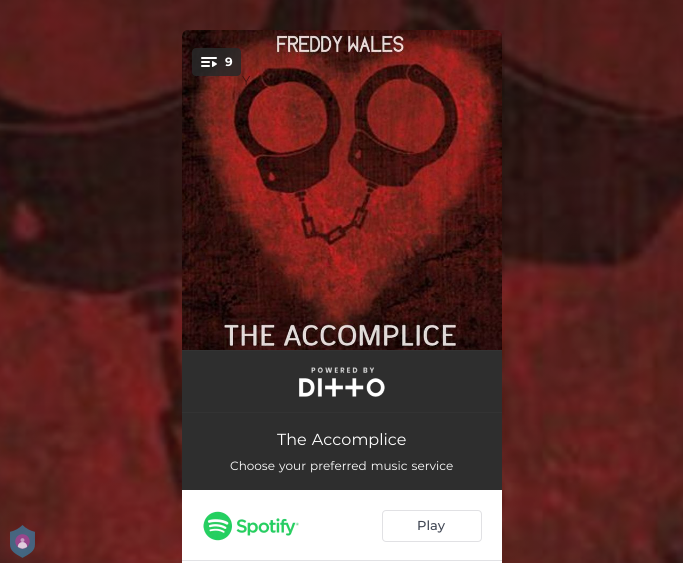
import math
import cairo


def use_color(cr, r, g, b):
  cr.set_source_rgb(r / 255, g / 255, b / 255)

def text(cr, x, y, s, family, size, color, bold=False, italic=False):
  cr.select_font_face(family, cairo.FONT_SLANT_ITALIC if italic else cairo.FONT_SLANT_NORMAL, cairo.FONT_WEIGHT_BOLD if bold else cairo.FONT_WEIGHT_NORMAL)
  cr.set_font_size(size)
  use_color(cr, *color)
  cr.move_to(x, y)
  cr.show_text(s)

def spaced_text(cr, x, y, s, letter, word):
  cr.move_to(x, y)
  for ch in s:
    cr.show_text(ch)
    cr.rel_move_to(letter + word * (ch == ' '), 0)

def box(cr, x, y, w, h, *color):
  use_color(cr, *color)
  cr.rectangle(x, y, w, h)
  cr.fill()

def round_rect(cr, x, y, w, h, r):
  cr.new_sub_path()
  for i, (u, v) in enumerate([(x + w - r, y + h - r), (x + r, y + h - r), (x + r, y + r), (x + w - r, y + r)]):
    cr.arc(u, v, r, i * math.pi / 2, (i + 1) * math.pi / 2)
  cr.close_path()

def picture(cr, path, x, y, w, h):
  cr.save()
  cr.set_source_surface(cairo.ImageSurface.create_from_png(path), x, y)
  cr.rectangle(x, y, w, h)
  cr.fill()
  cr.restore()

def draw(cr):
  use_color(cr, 255, 255, 255)
  cr.paint()
  picture(cr, "img_01.png", 0, 0, 683, 563)
  picture(cr, "img_02.png", 182, 30, 320, 320)
  cr.set_source_rgba(0.157, 0.157, 0.157, 0.85)
  round_rect(cr, 192, 48, 49, 28, 4)
  cr.fill()
  picture(cr, "img_03.png", 201, 57, 16, 10)
  box(cr, 182, 351, 320, 61, 46, 46, 46)
  box(cr, 182, 350, 320, 1, 51, 51, 51)
  box(cr, 182, 412, 320, 1, 51, 51, 51)
  picture(cr, "img_04.png", 299, 367, 86, 30)
  box(cr, 182, 413, 320, 77, 46, 46, 46)
  box(cr, 182, 490, 320, 73, 255, 255, 255)
  box(cr, 182, 560, 320, 1, 225, 225, 228)
  picture(cr, "img_05.png", 203, 511, 96, 30)
  round_rect(cr, 382.5, 510.5, 99, 31, 3.5)
  cr.set_line_width(1)
  cr.stroke()
  picture(cr, "img_06.png", 10, 525, 25, 33)
  text(cr, 225, 66, "9", "Montserrat", 12, (255, 255, 255), bold=True)
  cr.select_font_face("Montserrat")
  cr.set_font_size(13)
  use_color(cr, 67, 19, 16)
  spaced_text(cr, 242, 85, "Y", 0, 1)
  cr.set_font_size(16)
  use_color(cr, 255, 255, 255)
  spaced_text(cr, 277, 445, "The Accomplice", 0, 1)
  cr.set_font_size(12)
  spaced_text(cr, 230, 470, "Choose your preferred music service", 0, 1)
  text(cr, 417, 530, "Play", "Montserrat Medium", 13, (65, 71, 84))


surface = cairo.ImageSurface(cairo.FORMAT_RGB24, 683, 563)
cr = cairo.Context(surface)
options = cairo.FontOptions()
options.set_hint_metrics(cairo.HINT_METRICS_OFF)
options.set_hint_style(cairo.HINT_STYLE_NONE)
cr.set_font_options(options)
cr.set_miter_limit(4)
draw(cr)
surface.write_to_png("out.png")
